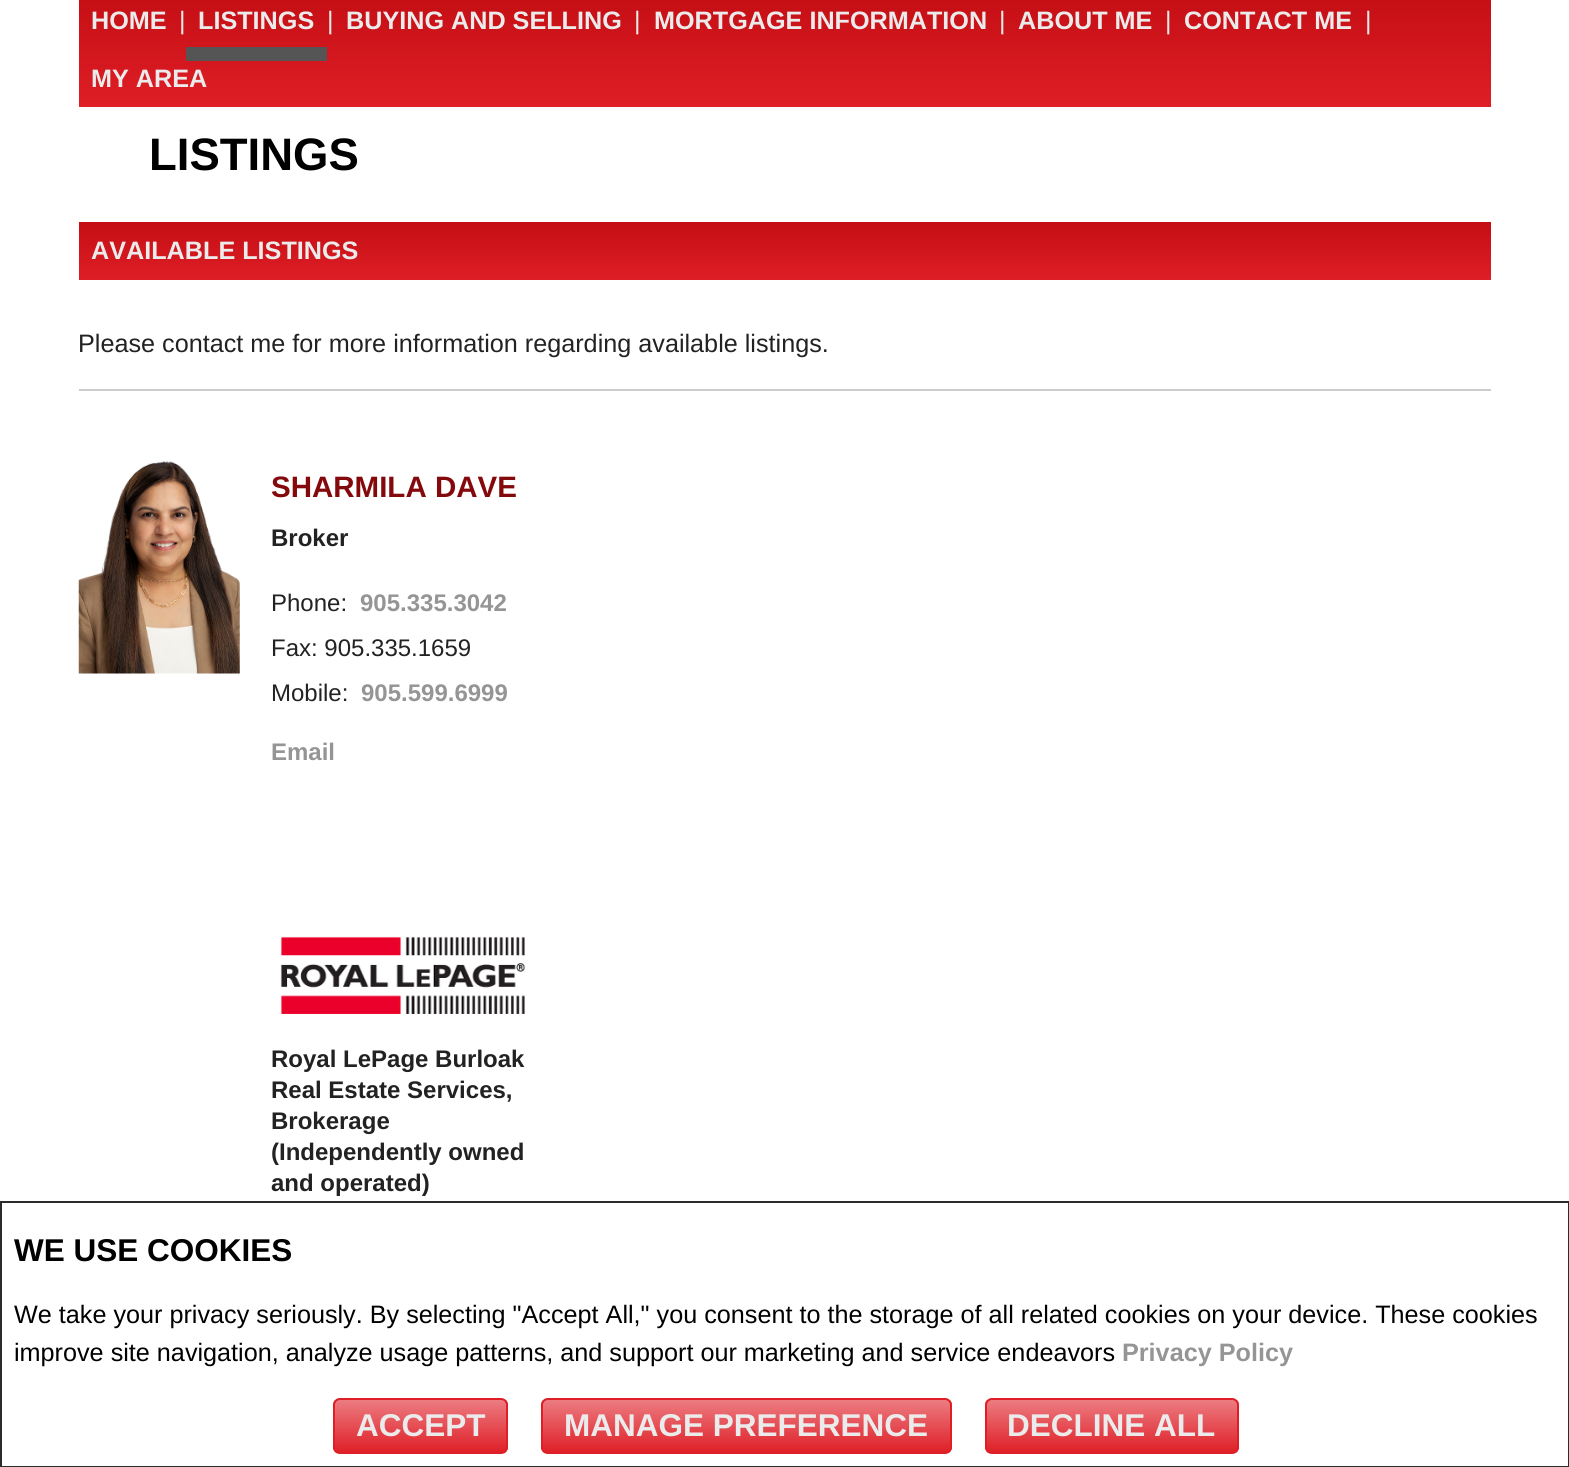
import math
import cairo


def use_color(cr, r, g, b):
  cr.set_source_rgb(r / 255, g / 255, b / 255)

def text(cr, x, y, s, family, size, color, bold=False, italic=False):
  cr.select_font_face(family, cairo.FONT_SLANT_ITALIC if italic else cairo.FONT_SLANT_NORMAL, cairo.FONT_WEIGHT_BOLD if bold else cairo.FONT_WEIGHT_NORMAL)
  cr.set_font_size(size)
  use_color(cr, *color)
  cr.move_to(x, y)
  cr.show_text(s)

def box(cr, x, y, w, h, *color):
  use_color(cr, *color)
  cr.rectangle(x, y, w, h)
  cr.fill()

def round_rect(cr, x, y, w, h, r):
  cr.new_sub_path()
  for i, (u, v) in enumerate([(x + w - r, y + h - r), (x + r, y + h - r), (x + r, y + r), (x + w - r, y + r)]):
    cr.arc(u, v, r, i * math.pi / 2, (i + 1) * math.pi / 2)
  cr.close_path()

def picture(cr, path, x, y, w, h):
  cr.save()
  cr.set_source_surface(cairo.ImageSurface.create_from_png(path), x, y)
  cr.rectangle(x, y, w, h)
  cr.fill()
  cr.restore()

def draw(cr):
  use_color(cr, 255, 255, 255)
  cr.paint()
  gradient = cairo.LinearGradient(785, -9, 785, 107)
  gradient.add_color_stop_rgba(0, 0.765, 0.055, 0.075, 1)
  gradient.add_color_stop_rgba(1, 0.875, 0.118, 0.149, 1)
  cr.set_source(gradient)
  cr.rectangle(79, 0, 1412, 107)
  cr.fill()
  box(cr, 186, 47, 141, 14, 85, 85, 85)
  gradient = cairo.LinearGradient(785, 222, 785, 280)
  gradient.add_color_stop_rgba(0, 0.765, 0.055, 0.075, 1)
  gradient.add_color_stop_rgba(1, 0.875, 0.118, 0.149, 1)
  cr.set_source(gradient)
  cr.rectangle(79, 222, 1412, 58)
  cr.fill()
  box(cr, 79, 389, 1412, 2, 204, 204, 204)
  picture(cr, "img_01.png", 78, 461, 162, 213)
  picture(cr, "img_02.png", 280, 936, 245, 78)
  cr.rectangle(1, 1202, 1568, 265)
  use_color(cr, 43, 43, 43)
  cr.stroke()
  cr.save()
  round_rect(cr, 333, 1398, 175, 56, 7)
  cr.clip()
  gradient = cairo.LinearGradient(420, 1400, 420, 1453)
  gradient.add_color_stop_rgba(0, 0.925, 0.486, 0.506, 1)
  gradient.add_color_stop_rgba(1, 0.875, 0.118, 0.149, 1)
  cr.set_source(gradient)
  cr.rectangle(333, 1400, 175, 53)
  cr.fill()
  cr.restore()
  round_rect(cr, 334, 1399, 173, 54, 6)
  use_color(cr, 223, 30, 38)
  cr.stroke()
  cr.save()
  round_rect(cr, 541, 1398, 411, 56, 7)
  cr.clip()
  gradient = cairo.LinearGradient(746, 1400, 746, 1453)
  gradient.add_color_stop_rgba(0, 0.925, 0.486, 0.506, 1)
  gradient.add_color_stop_rgba(1, 0.875, 0.118, 0.149, 1)
  cr.set_source(gradient)
  cr.rectangle(541, 1400, 411, 53)
  cr.fill()
  cr.restore()
  round_rect(cr, 542, 1399, 409, 54, 6)
  cr.stroke()
  cr.save()
  round_rect(cr, 985, 1398, 254, 56, 7)
  cr.clip()
  gradient = cairo.LinearGradient(1112, 1400, 1112, 1453)
  gradient.add_color_stop_rgba(0, 0.925, 0.486, 0.506, 1)
  gradient.add_color_stop_rgba(1, 0.875, 0.118, 0.149, 1)
  cr.set_source(gradient)
  cr.rectangle(985, 1400, 254, 53)
  cr.fill()
  cr.restore()
  round_rect(cr, 986, 1399, 252, 54, 6)
  cr.stroke()
  text(cr, 91, 29, "HOME", "Liberation Sans", 25.2, (235, 235, 235), bold=True)
  text(cr, 179, 29, "|", "Liberation Sans", 25.2, (235, 235, 235))
  text(cr, 198, 29, "LISTINGS", "Liberation Sans", 25.2, (235, 235, 235), bold=True)
  text(cr, 327, 29, "|", "Liberation Sans", 25.2, (235, 235, 235))
  text(cr, 346, 29, "BUYING AND SELLING", "Liberation Sans", 25.2, (235, 235, 235), bold=True)
  text(cr, 634, 29, "|", "Liberation Sans", 25.2, (235, 235, 235))
  text(cr, 654, 29, "MORTGAGE INFORMATION", "Liberation Sans", 25.2, (235, 235, 235), bold=True)
  text(cr, 999, 29, "|", "Liberation Sans", 25.2, (235, 235, 235))
  text(cr, 1018, 29, "ABOUT ME", "Liberation Sans", 25.2, (235, 235, 235), bold=True)
  text(cr, 1165, 29, "|", "Liberation Sans", 25.2, (235, 235, 235))
  text(cr, 1184, 29, "CONTACT ME", "Liberation Sans", 25.2, (235, 235, 235), bold=True)
  text(cr, 1365, 29, "|", "Liberation Sans", 25.2, (235, 235, 235))
  text(cr, 91, 87, "MY AREA", "Liberation Sans", 25.2, (235, 235, 235), bold=True)
  text(cr, 149, 170, "LISTINGS", "Liberation Sans", 45.5, (0, 0, 0), bold=True)
  text(cr, 91, 259, "AVAILABLE LISTINGS", "Liberation Sans", 25.2, (235, 235, 235), bold=True)
  text(cr, 78, 352, "Please contact me for more information regarding available listings.", "Liberation Sans", 25.2, (34, 34, 34))
  text(cr, 271, 497, "SHARMILA DAVE", "Liberation Sans", 29.5, (132, 9, 12), bold=True)
  text(cr, 271, 546, "Broker", "Liberation Sans", 24, (34, 34, 34), bold=True)
  text(cr, 271, 611, "Phone:", "Liberation Sans", 24, (34, 34, 34))
  text(cr, 360, 611, "905.335.3042", "Liberation Sans", 24, (149, 149, 149), bold=True)
  text(cr, 271, 656, "Fax: 905.335.1659", "Liberation Sans", 24, (34, 34, 34))
  text(cr, 271, 701, "Mobile:", "Liberation Sans", 24, (34, 34, 34))
  text(cr, 361, 701, "905.599.6999", "Liberation Sans", 24, (149, 149, 149), bold=True)
  text(cr, 271, 760, "Email", "Liberation Sans", 24, (149, 149, 149), bold=True)
  text(cr, 271, 1067, "Royal LePage Burloak", "Liberation Sans", 24, (34, 34, 34), bold=True)
  text(cr, 271, 1098, "Real Estate Services,", "Liberation Sans", 24, (34, 34, 34), bold=True)
  text(cr, 271, 1129, "Brokerage", "Liberation Sans", 24, (34, 34, 34), bold=True)
  text(cr, 271, 1160, "(Independently owned", "Liberation Sans", 24, (34, 34, 34), bold=True)
  text(cr, 271, 1191, "and operated)", "Liberation Sans", 24, (34, 34, 34), bold=True)
  text(cr, 14, 1261, "WE USE COOKIES", "Liberation Sans", 31.5, (0, 0, 0), bold=True)
  text(cr, 14, 1323, "We take your privacy seriously. By selecting \"Accept All,\" you consent to the storage of all related cookies on your device. These cookies", "Liberation Sans", 25.2, (0, 0, 0))
  text(cr, 14, 1361, "improve site navigation, analyze usage patterns, and support our marketing and service endeavors", "Liberation Sans", 25.2, (0, 0, 0))
  text(cr, 1122, 1361, "Privacy Policy", "Liberation Sans", 25.2, (149, 149, 149), bold=True)
  text(cr, 356, 1436, "ACCEPT", "Liberation Sans", 31.5, (235, 235, 235), bold=True)
  text(cr, 564, 1436, "MANAGE PREFERENCE", "Liberation Sans", 31.5, (235, 235, 235), bold=True)
  text(cr, 1007, 1436, "DECLINE ALL", "Liberation Sans", 31.5, (235, 235, 235), bold=True)


surface = cairo.ImageSurface(cairo.FORMAT_RGB24, 1569, 1467)
cr = cairo.Context(surface)
options = cairo.FontOptions()
options.set_hint_metrics(cairo.HINT_METRICS_OFF)
options.set_hint_style(cairo.HINT_STYLE_NONE)
cr.set_font_options(options)
cr.set_miter_limit(4)
draw(cr)
surface.write_to_png("out.png")
